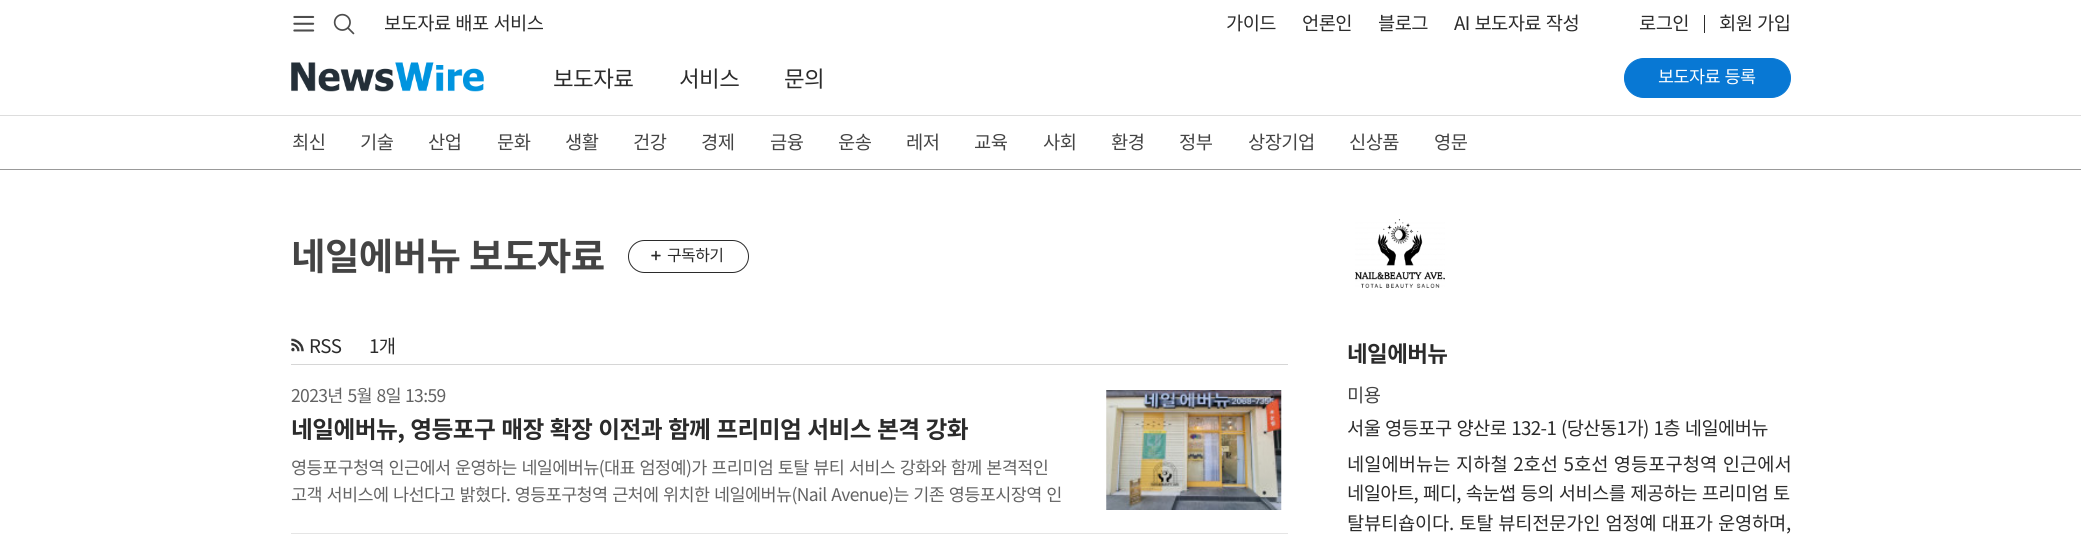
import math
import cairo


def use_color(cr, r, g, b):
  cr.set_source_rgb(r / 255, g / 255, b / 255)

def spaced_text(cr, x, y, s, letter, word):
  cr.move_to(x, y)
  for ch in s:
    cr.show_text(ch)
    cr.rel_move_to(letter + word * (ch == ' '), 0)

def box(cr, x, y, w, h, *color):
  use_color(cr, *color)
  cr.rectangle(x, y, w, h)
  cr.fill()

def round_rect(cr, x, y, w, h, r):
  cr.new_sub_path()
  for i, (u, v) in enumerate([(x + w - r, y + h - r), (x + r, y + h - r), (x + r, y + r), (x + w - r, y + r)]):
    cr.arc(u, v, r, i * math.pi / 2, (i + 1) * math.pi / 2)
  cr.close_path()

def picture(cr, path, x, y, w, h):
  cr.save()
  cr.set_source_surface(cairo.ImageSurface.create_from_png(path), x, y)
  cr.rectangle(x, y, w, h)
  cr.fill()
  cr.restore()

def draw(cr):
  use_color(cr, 255, 255, 255)
  cr.paint()
  picture(cr, "img_01.png", 293, 15, 22, 17)
  picture(cr, "img_02.png", 333, 13, 22, 22)
  box(cr, 1704, 15, 1, 18, 43, 43, 43)
  picture(cr, "img_03.png", 291, 62, 193, 30)
  use_color(cr, 8, 120, 212)
  round_rect(cr, 1624.5, 58.5, 166, 39, 19.5)
  cr.fill_preserve()
  cr.set_line_width(1)
  cr.stroke()
  box(cr, 0, 115, 2081, 1, 221, 221, 221)
  box(cr, 0, 169, 2081, 1, 153, 153, 153)
  round_rect(cr, 628.5, 240.5, 120, 32, 16)
  use_color(cr, 43, 43, 43)
  cr.stroke()
  picture(cr, "img_04.png", 651, 250, 10, 11)
  picture(cr, "img_05.png", 1355, 219, 90, 69)
  box(cr, 291, 364, 997, 1, 214, 214, 214)
  picture(cr, "img_06.png", 291, 338, 13, 14)
  box(cr, 291, 533, 997, 1, 229, 229, 229)
  picture(cr, "img_07.png", 1106, 390, 176, 120)
  cr.select_font_face("Noto Sans KR")
  cr.set_font_size(18.75)
  use_color(cr, 43, 43, 43)
  spaced_text(cr, 384, 30, "보도자료 배포 서비스", -0.62, 1.25)
  spaced_text(cr, 1226, 30, "가이드", -0.62, 0)
  spaced_text(cr, 1302, 30, "언론인", -0.62, 0)
  spaced_text(cr, 1378, 30, "블로그", -0.62, 0)
  spaced_text(cr, 1454, 30, "AI 보도자료 작성", -0.62, 1.25)
  spaced_text(cr, 1639, 30, "로그인", -0.62, 0)
  spaced_text(cr, 1719, 30, "회원 가입", -0.62, 1.25)
  cr.set_font_size(22.5)
  spaced_text(cr, 553, 87, "보도자료", -0.62, 0)
  spaced_text(cr, 679, 87, "서비스", -0.62, 0)
  spaced_text(cr, 784, 87, "문의", -0.62, 0)
  cr.set_font_size(17.5)
  use_color(cr, 255, 255, 255)
  spaced_text(cr, 1658, 83, "보도자료 등록", -0.62, 1.25)
  cr.set_font_size(18.75)
  use_color(cr, 68, 68, 68)
  spaced_text(cr, 292, 149, "최신", -0.62, 0)
  spaced_text(cr, 360, 149, "기술", -0.62, 0)
  spaced_text(cr, 428, 149, "산업", -0.62, 0)
  spaced_text(cr, 497, 149, "문화", -0.62, 0)
  spaced_text(cr, 565, 149, "생활", -0.62, 0)
  spaced_text(cr, 633, 149, "건강", -0.62, 0)
  spaced_text(cr, 701, 149, "경제", -0.62, 0)
  spaced_text(cr, 770, 149, "금융", -0.62, 0)
  spaced_text(cr, 838, 149, "운송", -0.62, 0)
  spaced_text(cr, 906, 149, "레저", -0.62, 0)
  spaced_text(cr, 974, 149, "교육", -0.62, 0)
  spaced_text(cr, 1043, 149, "사회", -0.62, 0)
  spaced_text(cr, 1111, 149, "환경", -0.62, 0)
  spaced_text(cr, 1179, 149, "정부", -0.62, 0)
  spaced_text(cr, 1248, 149, "상장기업", -0.62, 0)
  spaced_text(cr, 1349, 149, "신상품", -0.62, 0)
  spaced_text(cr, 1434, 149, "영문", -0.62, 0)
  cr.select_font_face("Noto Sans KR", cairo.FONT_SLANT_NORMAL, cairo.FONT_WEIGHT_BOLD)
  cr.set_font_size(37.5)
  spaced_text(cr, 291, 270, "네일에버뉴", -0.62, 0)
  spaced_text(cr, 469, 270, "보도자료", -0.62, 0)
  cr.select_font_face("Noto Sans KR")
  cr.set_font_size(16)
  use_color(cr, 43, 43, 43)
  spaced_text(cr, 667, 261, "구독하기", -0.62, 0)
  cr.set_font_size(18.75)
  spaced_text(cr, 309, 353, "RSS", -0.62, 0)
  spaced_text(cr, 369, 353, "1개", -0.62, 0)
  cr.set_font_size(17.5)
  use_color(cr, 99, 99, 99)
  spaced_text(cr, 291, 402, "2023년 5월 8일", -0.62, 1.25)
  spaced_text(cr, 405, 402, "13:59", -0.62, 0)
  cr.select_font_face("Noto Sans KR", cairo.FONT_SLANT_NORMAL, cairo.FONT_WEIGHT_BOLD)
  cr.set_font_size(23.75)
  use_color(cr, 43, 43, 43)
  spaced_text(cr, 291, 438, "네일에버뉴, 영등포구 매장 확장 이전과 함께 프리미엄 서비스 본격 강화", -0.62, 1.25)
  cr.select_font_face("Noto Sans KR")
  cr.set_font_size(17.5)
  use_color(cr, 99, 99, 99)
  spaced_text(cr, 291, 474, "영등포구청역 인근에서 운영하는 네일에버뉴(대표 엄정예)가 프리미엄 토탈 뷰티 서비스 강화와 함께 본격적인", -0.62, 1.25)
  spaced_text(cr, 291, 501, "고객 서비스에 나선다고 밝혔다. 영등포구청역 근처에 위치한 네일에버뉴(Nail Avenue)는 기존 영등포시장역 인", -0.62, 1.25)
  cr.select_font_face("Noto Sans KR", cairo.FONT_SLANT_NORMAL, cairo.FONT_WEIGHT_BOLD)
  cr.set_font_size(22.5)
  use_color(cr, 43, 43, 43)
  spaced_text(cr, 1347, 362, "네일에버뉴", -0.62, 0)
  cr.select_font_face("Noto Sans KR")
  cr.set_font_size(18.75)
  use_color(cr, 68, 68, 68)
  spaced_text(cr, 1347, 402, "미용", -0.62, 0)
  use_color(cr, 43, 43, 43)
  spaced_text(cr, 1347, 435, "서울 영등포구 양산로 132-1", -0.62, 1.25)
  spaced_text(cr, 1561, 435, "(당산동1가) 1층 네일에버뉴", -0.62, 1.25)
  spaced_text(cr, 1347, 471, "네일에버뉴는 지하철 2호선 5호선 영등포구청역 인근에서", 0, 1.25)
  spaced_text(cr, 1347, 500, "네일아트, 페디, 속눈썹 등의 서비스를 제공하는 프리미엄 토", -0.6, 1.25)
  spaced_text(cr, 1347, 530, "탈뷰티숍이다. 토탈 뷰티전문가인 엄정예 대표가 운영하며,", -0.25, 1.25)


surface = cairo.ImageSurface(cairo.FORMAT_RGB24, 2081, 541)
cr = cairo.Context(surface)
options = cairo.FontOptions()
options.set_hint_metrics(cairo.HINT_METRICS_OFF)
options.set_hint_style(cairo.HINT_STYLE_NONE)
cr.set_font_options(options)
cr.set_miter_limit(4)
draw(cr)
surface.write_to_png("out.png")
